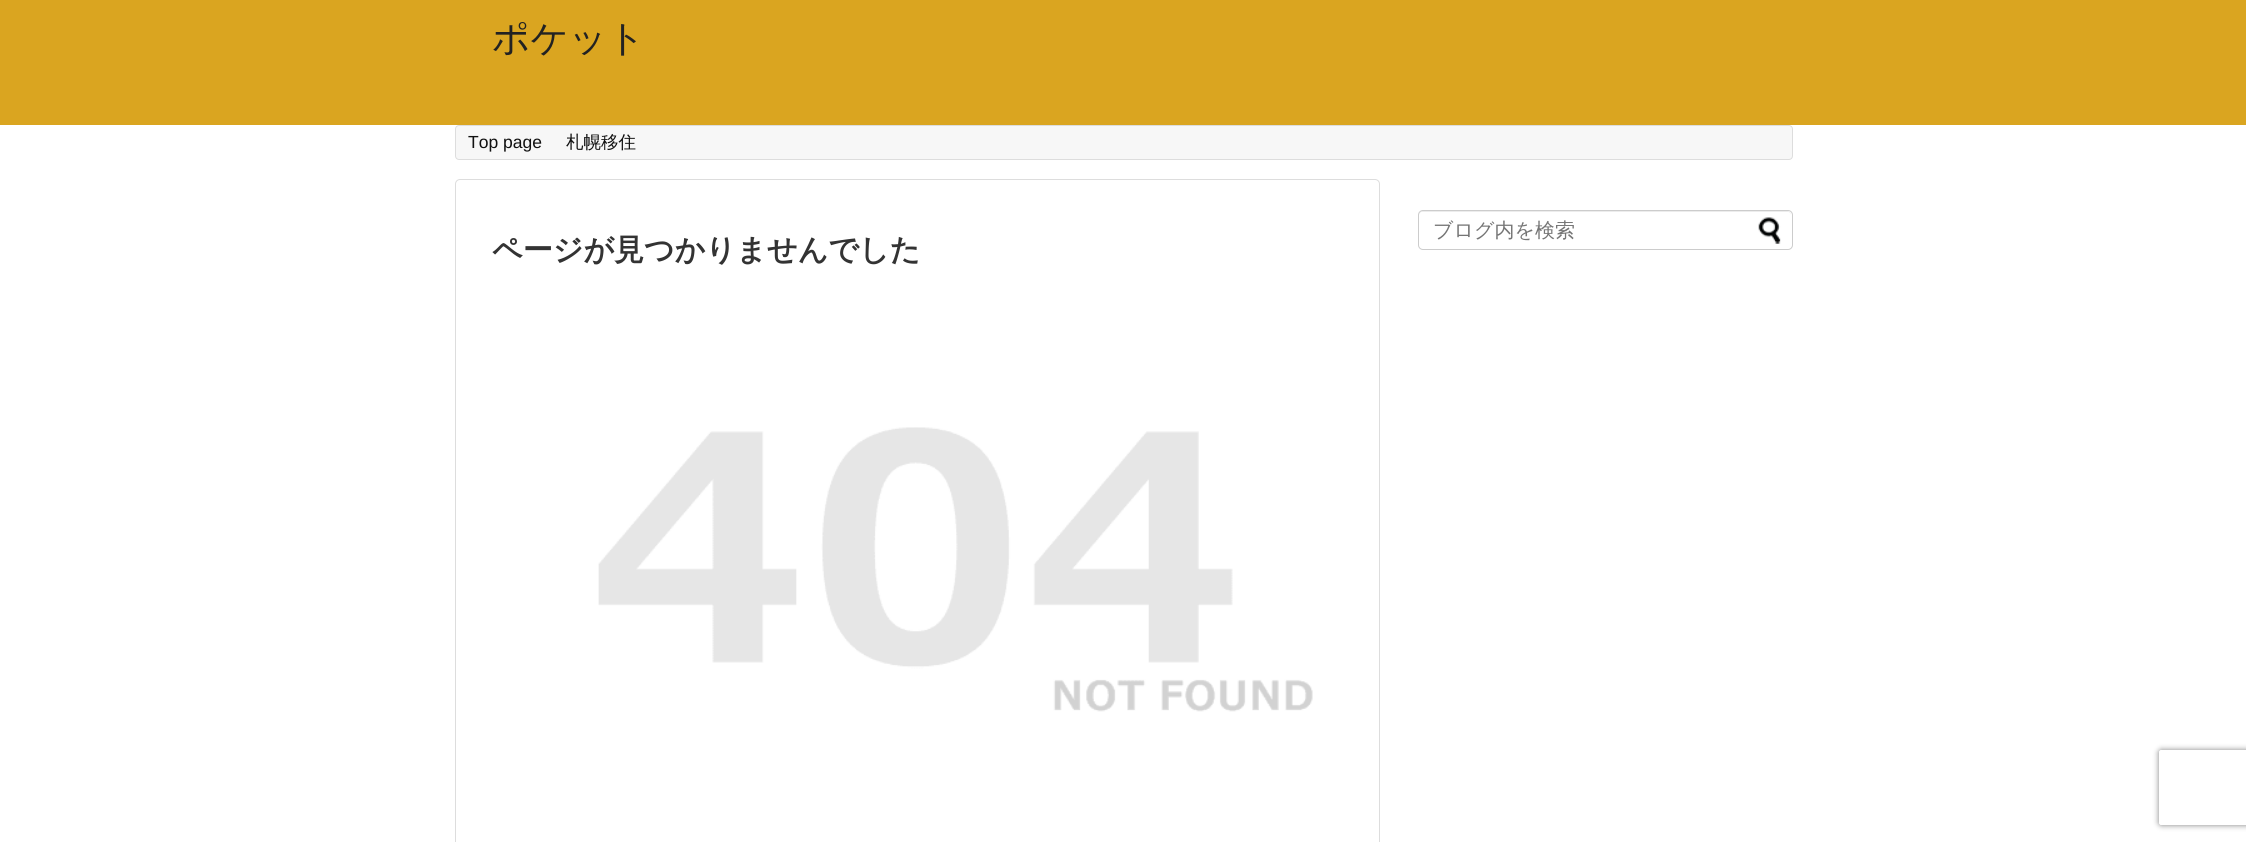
import math
import cairo


def use_color(cr, r, g, b):
  cr.set_source_rgb(r / 255, g / 255, b / 255)

def text(cr, x, y, s, family, size, color, bold=False, italic=False):
  cr.select_font_face(family, cairo.FONT_SLANT_ITALIC if italic else cairo.FONT_SLANT_NORMAL, cairo.FONT_WEIGHT_BOLD if bold else cairo.FONT_WEIGHT_NORMAL)
  cr.set_font_size(size)
  use_color(cr, *color)
  cr.move_to(x, y)
  cr.show_text(s)

def box(cr, x, y, w, h, *color):
  use_color(cr, *color)
  cr.rectangle(x, y, w, h)
  cr.fill()

def round_rect(cr, x, y, w, h, r):
  cr.new_sub_path()
  for i, (u, v) in enumerate([(x + w - r, y + h - r), (x + r, y + h - r), (x + r, y + r), (x + w - r, y + r)]):
    cr.arc(u, v, r, i * math.pi / 2, (i + 1) * math.pi / 2)
  cr.close_path()

def shadow(cr, x, y, w, h, r, blur, alpha):
  cr.push_group_with_content(cairo.CONTENT_ALPHA)
  cr.set_operator(cairo.OPERATOR_SOURCE)
  for i in range(15, -16, -2):
    e = blur * i / 6
    if min(w, h) + 2 * e > 0:
      cr.set_source_rgba(0, 0, 0, alpha * math.erfc((i - 1) / 8.5) / 2)
      round_rect(cr, x - e, y - e, w + 2 * e, h + 2 * e, max(0, min(r + e + blur * .6, min(w, h) / 2 + e)))
      cr.fill()
  cr.mask(cr.pop_group())

def picture(cr, path, x, y, w, h):
  cr.save()
  cr.set_source_surface(cairo.ImageSurface.create_from_png(path), x, y)
  cr.rectangle(x, y, w, h)
  cr.fill()
  cr.restore()

def draw(cr):
  use_color(cr, 255, 255, 255)
  cr.paint()
  box(cr, 0, 0, 2246, 125, 218, 165, 32)
  use_color(cr, 247, 247, 247)
  round_rect(cr, 455.5, 125.5, 1337, 34, 3.5)
  cr.fill_preserve()
  use_color(cr, 221, 221, 221)
  cr.set_line_width(1)
  cr.stroke()
  use_color(cr, 236, 236, 236)
  cr.new_path()
  cr.move_to(1422, 212)
  cr.line_to(1788, 212)
  cr.curve_to(1790, 212, 1791, 214, 1791, 216)
  cr.curve_to(1791, 213, 1790, 211, 1787, 211)
  cr.line_to(1423, 211)
  cr.curve_to(1420, 211, 1419, 213, 1419, 216)
  cr.curve_to(1419, 214, 1420, 212, 1422, 212)
  cr.close_path()
  cr.fill()
  round_rect(cr, 1418.5, 210.5, 374, 39, 4.5)
  use_color(cr, 204, 204, 204)
  cr.stroke()
  picture(cr, "img_01.png", 1758, 217, 23, 27)
  round_rect(cr, 455.5, 179.5, 924, 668, 4.5)
  use_color(cr, 221, 221, 221)
  cr.stroke()
  picture(cr, "img_02.png", 598, 427, 715, 285)
  cr.save()
  cr.set_fill_rule(cairo.FILL_RULE_EVEN_ODD)
  cr.new_path()
  cr.move_to(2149, 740)
  cr.line_to(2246, 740)
  cr.line_to(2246, 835)
  cr.line_to(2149, 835)
  cr.close_path()
  cr.move_to(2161.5, 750)
  cr.line_to(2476.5, 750)
  cr.curve_to(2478, 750, 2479, 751, 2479, 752.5)
  cr.line_to(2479, 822.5)
  cr.curve_to(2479, 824, 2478, 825, 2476.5, 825)
  cr.line_to(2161.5, 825)
  cr.curve_to(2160, 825, 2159, 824, 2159, 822.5)
  cr.line_to(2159, 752.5)
  cr.curve_to(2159, 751, 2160, 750, 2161.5, 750)
  cr.close_path()
  cr.clip()
  use_color(cr, 128, 128, 128)
  shadow(cr, 2159, 750, 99, 75, 2.5, 3, 1)
  cr.restore()
  text(cr, 492, 51, "ポケット", "WenQuanYi Zen Hei Medium", 37.5, (34, 34, 34))
  text(cr, 468, 148, "Top page", "Liberation Sans", 17.5, (17, 17, 17))
  text(cr, 566, 148, "札幌移住", "WenQuanYi Zen Hei Medium", 17.5, (17, 17, 17))
  text(cr, 1433, 237, "ブログ内を検索", "WenQuanYi Zen Hei Medium", 20, (117, 117, 117))
  text(cr, 492, 260, "ページが見つかりませんでした", "WenQuanYi Zen Hei", 30, (51, 51, 51), bold=True)


surface = cairo.ImageSurface(cairo.FORMAT_RGB24, 2246, 842)
cr = cairo.Context(surface)
options = cairo.FontOptions()
options.set_hint_metrics(cairo.HINT_METRICS_OFF)
options.set_hint_style(cairo.HINT_STYLE_NONE)
cr.set_font_options(options)
cr.set_miter_limit(4)
draw(cr)
surface.write_to_png("out.png")
